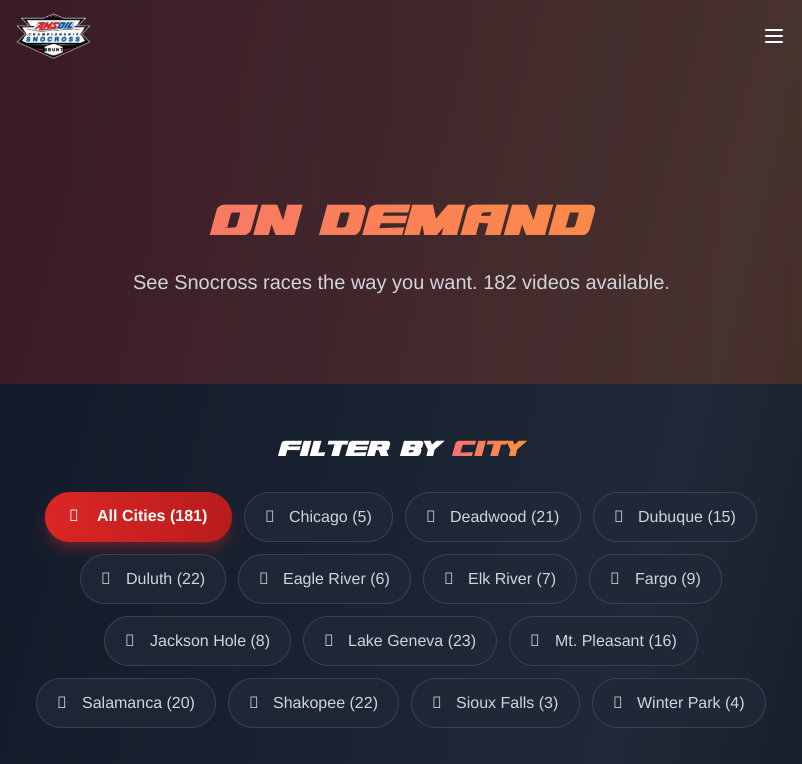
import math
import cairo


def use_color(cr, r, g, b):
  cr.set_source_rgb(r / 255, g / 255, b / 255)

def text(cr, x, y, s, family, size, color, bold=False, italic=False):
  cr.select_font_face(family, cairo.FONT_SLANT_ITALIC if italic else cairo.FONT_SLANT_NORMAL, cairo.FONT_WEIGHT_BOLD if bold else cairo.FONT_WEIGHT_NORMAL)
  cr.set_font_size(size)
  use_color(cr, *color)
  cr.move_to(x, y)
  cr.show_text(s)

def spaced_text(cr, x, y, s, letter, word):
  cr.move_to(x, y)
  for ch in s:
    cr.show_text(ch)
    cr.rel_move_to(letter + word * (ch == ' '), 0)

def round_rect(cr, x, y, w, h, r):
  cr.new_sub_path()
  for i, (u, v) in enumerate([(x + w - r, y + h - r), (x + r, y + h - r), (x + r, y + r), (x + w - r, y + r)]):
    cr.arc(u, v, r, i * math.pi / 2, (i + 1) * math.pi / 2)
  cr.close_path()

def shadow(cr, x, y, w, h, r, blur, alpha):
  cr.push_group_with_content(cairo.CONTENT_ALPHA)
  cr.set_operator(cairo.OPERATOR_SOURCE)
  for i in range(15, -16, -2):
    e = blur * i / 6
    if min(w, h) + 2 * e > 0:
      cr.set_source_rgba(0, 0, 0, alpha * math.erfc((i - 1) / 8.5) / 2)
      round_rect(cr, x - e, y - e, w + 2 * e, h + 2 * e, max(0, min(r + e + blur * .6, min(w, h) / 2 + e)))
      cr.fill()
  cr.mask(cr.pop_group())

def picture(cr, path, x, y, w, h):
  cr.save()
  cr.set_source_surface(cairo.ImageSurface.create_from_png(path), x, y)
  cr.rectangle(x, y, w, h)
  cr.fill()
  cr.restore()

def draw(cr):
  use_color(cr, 255, 255, 255)
  cr.paint()
  gradient = cairo.LinearGradient(-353, 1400, 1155, 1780)
  gradient.add_color_stop_rgba(0, 0.067, 0.094, 0.153, 1)
  gradient.add_color_stop_rgba(0.5, 0.122, 0.161, 0.216, 1)
  gradient.add_color_stop_rgba(1, 0, 0, 0, 1)
  cr.set_source(gradient)
  cr.rectangle(0, 0, 802, 764)
  cr.fill()
  gradient = cairo.LinearGradient(0, 192, 802, 192)
  gradient.add_color_stop_rgba(0, 0.863, 0.149, 0.149, 0.2)
  gradient.add_color_stop_rgba(1, 0.918, 0.345, 0.047, 0.2)
  cr.set_source(gradient)
  cr.rectangle(0, 0, 802, 384)
  cr.fill()
  picture(cr, "img_01.png", 16, 13, 75, 46)
  cr.new_path()
  cr.move_to(766, 30)
  cr.line_to(782, 30)
  cr.move_to(766, 36)
  cr.line_to(782, 36)
  cr.move_to(766, 42)
  cr.line_to(782, 42)
  use_color(cr, 255, 255, 255)
  cr.set_line_cap(cairo.LINE_CAP_ROUND)
  cr.set_line_join(cairo.LINE_JOIN_ROUND)
  cr.stroke()
  use_color(cr, 220, 38, 38)
  shadow(cr, 49, 500, 179, 42, 21, 3, 0.3)
  shadow(cr, 48, 505, 181, 44, 22, 7.5, 0.3)
  gradient = cairo.LinearGradient(45, 517, 232, 517)
  gradient.add_color_stop_rgba(0, 0.863, 0.149, 0.149, 1)
  gradient.add_color_stop_rgba(1, 0.725, 0.11, 0.11, 1)
  cr.set_source(gradient)
  round_rect(cr, 45, 492, 187, 50, 25)
  cr.fill()
  picture(cr, "img_02.png", 70, 509, 8, 12)
  cr.set_source_rgba(0.122, 0.161, 0.216, 0.8)
  round_rect(cr, 244.5, 492.5, 148, 49, 24.5)
  cr.fill_preserve()
  use_color(cr, 55, 65, 81)
  cr.set_line_width(1)
  cr.set_line_cap(cairo.LINE_CAP_BUTT)
  cr.set_line_join(cairo.LINE_JOIN_MITER)
  cr.stroke()
  picture(cr, "img_03.png", 266, 510, 8, 12)
  cr.set_source_rgba(0.122, 0.161, 0.216, 0.8)
  round_rect(cr, 405.5, 492.5, 175, 49, 24.5)
  cr.fill_preserve()
  use_color(cr, 55, 65, 81)
  cr.stroke()
  picture(cr, "img_04.png", 427, 510, 8, 12)
  cr.set_source_rgba(0.122, 0.161, 0.216, 0.8)
  round_rect(cr, 593.5, 492.5, 163, 49, 24.5)
  cr.fill_preserve()
  use_color(cr, 55, 65, 81)
  cr.stroke()
  picture(cr, "img_05.png", 615, 510, 8, 12)
  cr.set_source_rgba(0.122, 0.161, 0.216, 0.8)
  round_rect(cr, 80.5, 554.5, 145, 49, 24.5)
  cr.fill_preserve()
  use_color(cr, 55, 65, 81)
  cr.stroke()
  picture(cr, "img_06.png", 102, 572, 8, 12)
  cr.set_source_rgba(0.122, 0.161, 0.216, 0.8)
  round_rect(cr, 238.5, 554.5, 172, 49, 24.5)
  cr.fill_preserve()
  use_color(cr, 55, 65, 81)
  cr.stroke()
  picture(cr, "img_07.png", 260, 572, 8, 12)
  cr.set_source_rgba(0.122, 0.161, 0.216, 0.8)
  round_rect(cr, 423.5, 554.5, 153, 49, 24.5)
  cr.fill_preserve()
  use_color(cr, 55, 65, 81)
  cr.stroke()
  picture(cr, "img_08.png", 445, 572, 8, 12)
  cr.set_source_rgba(0.122, 0.161, 0.216, 0.8)
  round_rect(cr, 589.5, 554.5, 132, 49, 24.5)
  cr.fill_preserve()
  use_color(cr, 55, 65, 81)
  cr.stroke()
  picture(cr, "img_05.png", 611, 572, 8, 12)
  cr.set_source_rgba(0.122, 0.161, 0.216, 0.8)
  round_rect(cr, 104.5, 616.5, 186, 49, 24.5)
  cr.fill_preserve()
  use_color(cr, 55, 65, 81)
  cr.stroke()
  picture(cr, "img_09.png", 126, 634, 8, 12)
  cr.set_source_rgba(0.122, 0.161, 0.216, 0.8)
  round_rect(cr, 303.5, 616.5, 193, 49, 24.5)
  cr.fill_preserve()
  use_color(cr, 55, 65, 81)
  cr.stroke()
  picture(cr, "img_10.png", 325, 634, 8, 12)
  cr.set_source_rgba(0.122, 0.161, 0.216, 0.8)
  round_rect(cr, 509.5, 616.5, 188, 49, 24.5)
  cr.fill_preserve()
  use_color(cr, 55, 65, 81)
  cr.stroke()
  picture(cr, "img_11.png", 531, 634, 8, 12)
  cr.set_source_rgba(0.122, 0.161, 0.216, 0.8)
  round_rect(cr, 36.5, 678.5, 179, 49, 24.5)
  cr.fill_preserve()
  use_color(cr, 55, 65, 81)
  cr.stroke()
  picture(cr, "img_06.png", 58, 696, 8, 12)
  cr.set_source_rgba(0.122, 0.161, 0.216, 0.8)
  round_rect(cr, 228.5, 678.5, 170, 49, 24.5)
  cr.fill_preserve()
  use_color(cr, 55, 65, 81)
  cr.stroke()
  picture(cr, "img_12.png", 250, 696, 8, 12)
  cr.set_source_rgba(0.122, 0.161, 0.216, 0.8)
  round_rect(cr, 411.5, 678.5, 168, 49, 24.5)
  cr.fill_preserve()
  use_color(cr, 55, 65, 81)
  cr.stroke()
  picture(cr, "img_08.png", 433, 696, 8, 12)
  cr.set_source_rgba(0.122, 0.161, 0.216, 0.8)
  round_rect(cr, 592.5, 678.5, 173, 49, 24.5)
  cr.fill_preserve()
  use_color(cr, 55, 65, 81)
  cr.stroke()
  picture(cr, "img_13.png", 614, 696, 8, 12)
  cr.select_font_face("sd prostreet", cairo.FONT_SLANT_NORMAL, cairo.FONT_WEIGHT_BOLD)
  cr.set_font_size(60)
  gradient = cairo.LinearGradient(24, 222, 778, 222)
  gradient.add_color_stop_rgba(0, 0.973, 0.443, 0.443, 1)
  gradient.add_color_stop_rgba(1, 0.984, 0.573, 0.235, 1)
  cr.set_source(gradient)
  spaced_text(cr, 210, 235, "ON DEMAND", 1, 0)
  text(cr, 133, 289, "See Snocross races the way you want. 182 videos available.", "Liberation Sans", 20, (209, 213, 219))
  cr.select_font_face("sd prostreet", cairo.FONT_SLANT_NORMAL, cairo.FONT_WEIGHT_BOLD)
  cr.set_font_size(30)
  use_color(cr, 255, 255, 255)
  spaced_text(cr, 278, 456, "FILTER BY", 1, 0)
  gradient = cairo.LinearGradient(452, 450, 524, 450)
  gradient.add_color_stop_rgba(0, 0.973, 0.443, 0.443, 1)
  gradient.add_color_stop_rgba(1, 0.984, 0.573, 0.235, 1)
  cr.set_source(gradient)
  spaced_text(cr, 452, 456, "CITY", 1, 0)
  text(cr, 97, 521, "All Cities (181)", "Liberation Sans", 16, (255, 255, 255), bold=True)
  text(cr, 289, 522, "Chicago (5)", "Liberation Sans", 16, (209, 213, 219))
  text(cr, 450, 522, "Deadwood (21)", "Liberation Sans", 16, (209, 213, 219))
  text(cr, 638, 522, "Dubuque (15)", "Liberation Sans", 16, (209, 213, 219))
  text(cr, 126, 584, "Duluth (22)", "Liberation Sans", 16, (209, 213, 219))
  text(cr, 283, 584, "Eagle River (6)", "Liberation Sans", 16, (209, 213, 219))
  text(cr, 468, 584, "Elk River (7)", "Liberation Sans", 16, (209, 213, 219))
  text(cr, 635, 584, "Fargo (9)", "Liberation Sans", 16, (209, 213, 219))
  text(cr, 150, 646, "Jackson Hole (8)", "Liberation Sans", 16, (209, 213, 219))
  text(cr, 348, 646, "Lake Geneva (23)", "Liberation Sans", 16, (209, 213, 219))
  text(cr, 555, 646, "Mt. Pleasant (16)", "Liberation Sans", 16, (209, 213, 219))
  text(cr, 82, 708, "Salamanca (20)", "Liberation Sans", 16, (209, 213, 219))
  text(cr, 273, 708, "Shakopee (22)", "Liberation Sans", 16, (209, 213, 219))
  text(cr, 456, 708, "Sioux Falls (3)", "Liberation Sans", 16, (209, 213, 219))
  text(cr, 637, 708, "Winter Park (4)", "Liberation Sans", 16, (209, 213, 219))


surface = cairo.ImageSurface(cairo.FORMAT_RGB24, 802, 764)
cr = cairo.Context(surface)
options = cairo.FontOptions()
options.set_hint_metrics(cairo.HINT_METRICS_OFF)
options.set_hint_style(cairo.HINT_STYLE_NONE)
cr.set_font_options(options)
cr.set_miter_limit(4)
draw(cr)
surface.write_to_png("out.png")
